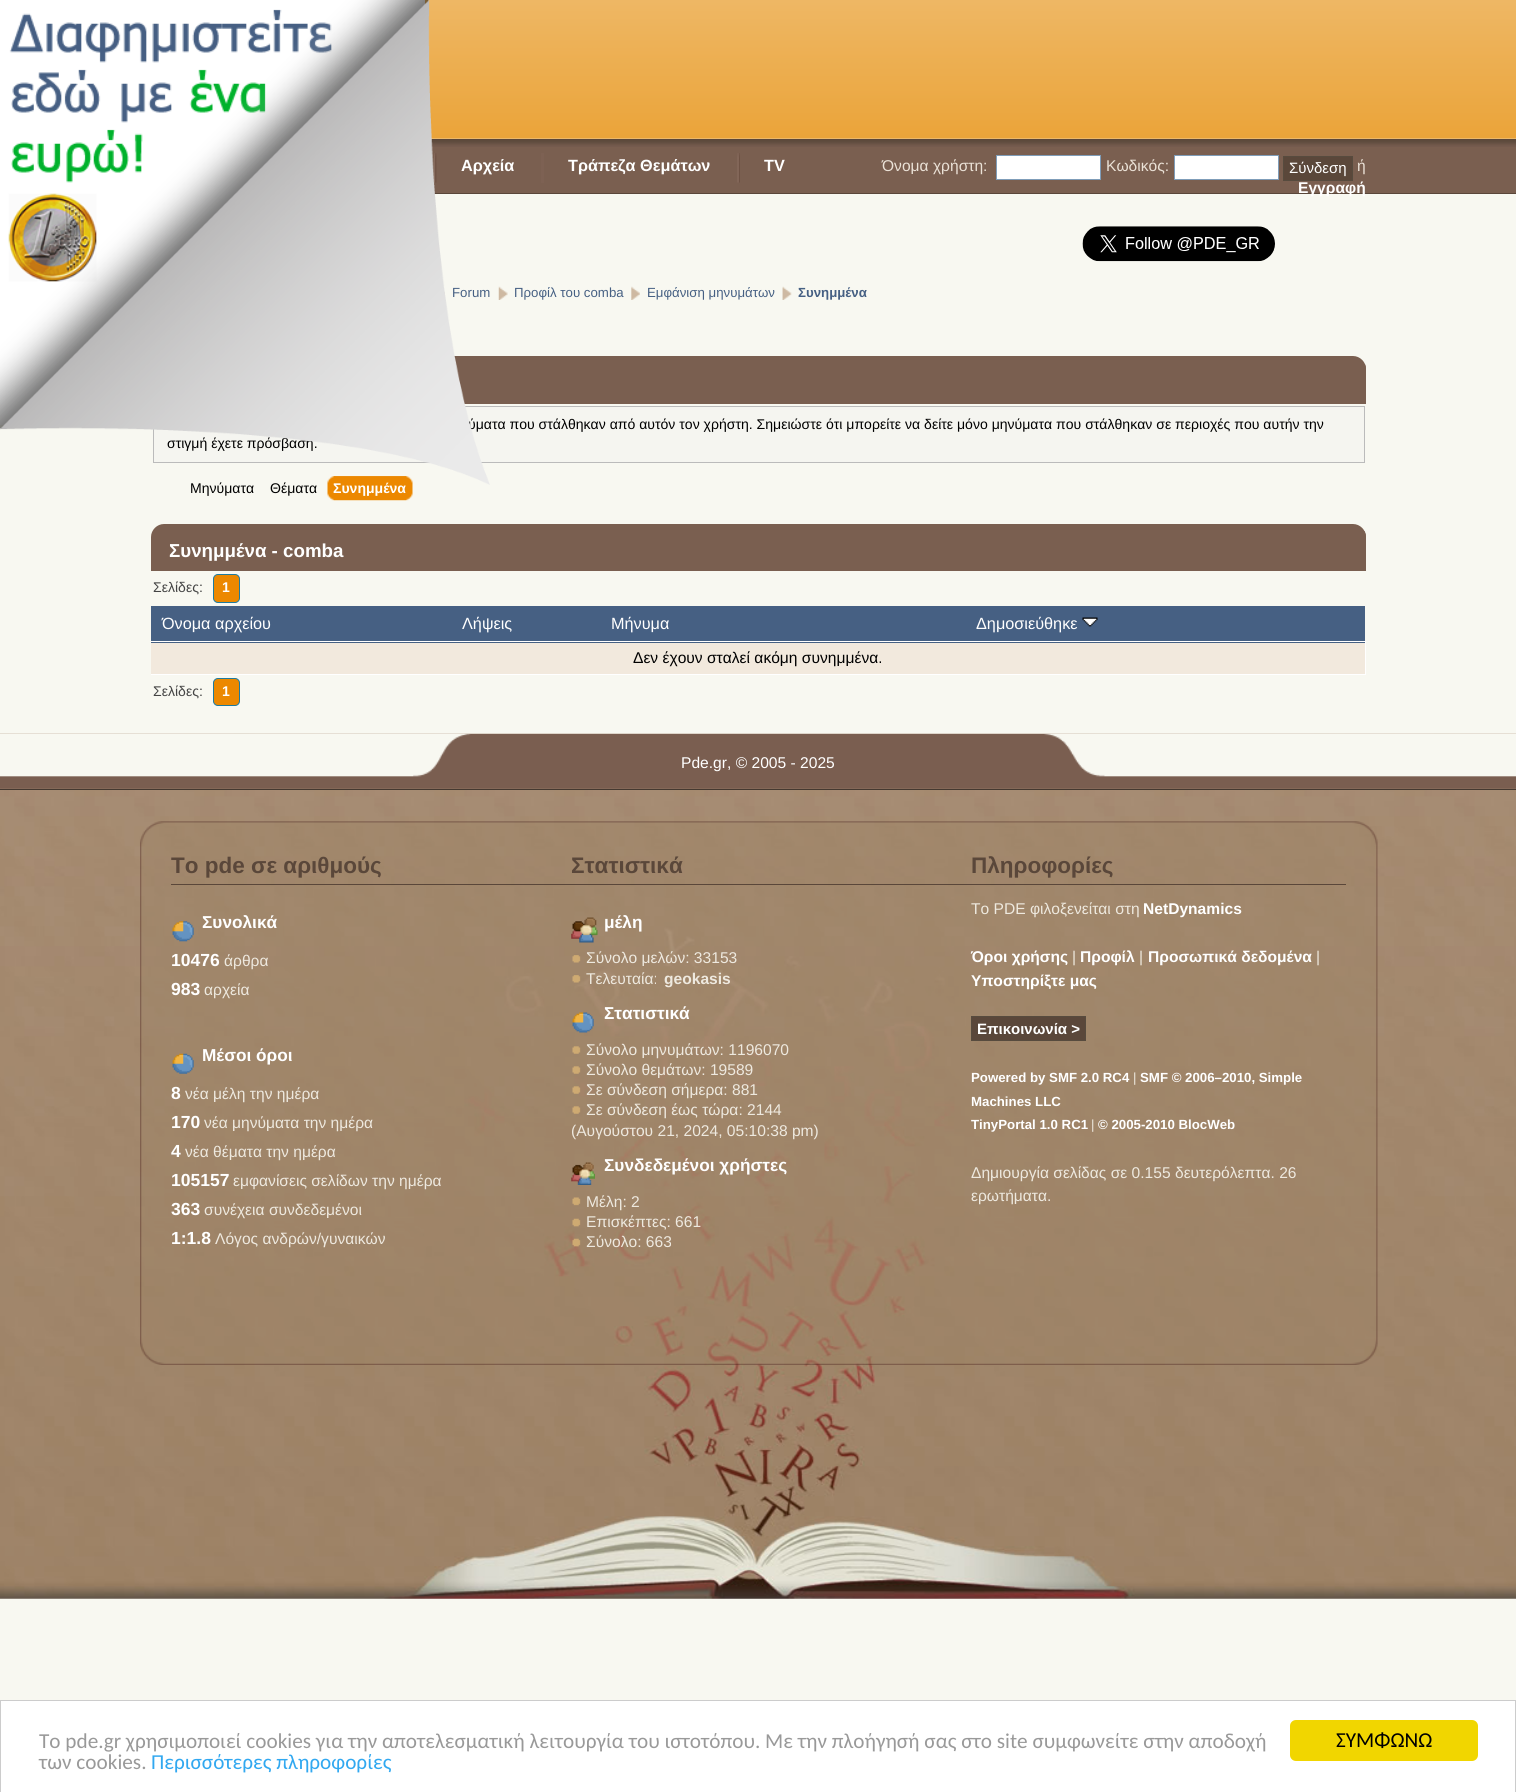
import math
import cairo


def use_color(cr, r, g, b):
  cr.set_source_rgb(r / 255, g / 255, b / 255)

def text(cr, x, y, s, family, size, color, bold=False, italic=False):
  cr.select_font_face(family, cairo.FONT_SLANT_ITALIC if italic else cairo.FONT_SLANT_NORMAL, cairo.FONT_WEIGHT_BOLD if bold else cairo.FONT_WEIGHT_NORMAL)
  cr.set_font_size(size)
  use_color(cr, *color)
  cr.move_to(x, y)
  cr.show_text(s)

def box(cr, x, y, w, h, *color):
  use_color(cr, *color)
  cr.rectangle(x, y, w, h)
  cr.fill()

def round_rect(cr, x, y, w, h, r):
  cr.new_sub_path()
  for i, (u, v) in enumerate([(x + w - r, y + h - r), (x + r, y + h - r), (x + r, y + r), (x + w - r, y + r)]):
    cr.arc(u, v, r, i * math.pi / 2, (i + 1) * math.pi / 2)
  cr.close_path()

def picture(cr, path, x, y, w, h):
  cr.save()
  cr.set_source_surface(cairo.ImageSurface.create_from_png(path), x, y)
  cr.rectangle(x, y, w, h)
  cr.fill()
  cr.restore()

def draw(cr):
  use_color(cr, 248, 248, 241)
  cr.paint()
  use_color(cr, 122, 95, 80)
  cr.new_path()
  cr.move_to(164, 356)
  cr.line_to(1353, 356)
  cr.curve_to(1360, 356, 1366, 362, 1366, 369)
  cr.line_to(1366, 404)
  cr.line_to(151, 404)
  cr.line_to(151, 369)
  cr.curve_to(151, 362, 157, 356, 164, 356)
  cr.close_path()
  cr.fill()
  use_color(cr, 245, 245, 240)
  cr.rectangle(153.5, 406.5, 1211, 56)
  cr.fill_preserve()
  use_color(cr, 187, 187, 187)
  cr.set_line_width(1)
  cr.stroke()
  picture(cr, "img_01.png", 0, 0, 425, 425)
  picture(cr, "img_03.png", 425, 0, 1091, 139)
  box(cr, 431, 147, 1085, 46, 122, 95, 80)
  picture(cr, "img_04.png", 431, 140, 1085, 7)
  box(cr, 431, 139, 1085, 1, 90, 71, 58)
  box(cr, 434, 193, 1082, 1, 90, 71, 58)
  picture(cr, "img_05.png", 434, 153, 3, 30)
  box(cr, 541, 153, 3, 30, 125, 97, 83)
  picture(cr, "img_06.png", 737, 153, 3, 30)
  use_color(cr, 255, 255, 255)
  cr.rectangle(996.5, 155.5, 104, 24)
  cr.fill_preserve()
  use_color(cr, 127, 157, 185)
  cr.stroke()
  use_color(cr, 255, 255, 255)
  cr.rectangle(1174.5, 155.5, 104, 24)
  cr.fill_preserve()
  use_color(cr, 127, 157, 185)
  cr.stroke()
  use_color(cr, 90, 71, 58)
  cr.rectangle(1283.5, 156.5, 69, 24)
  cr.fill_preserve()
  use_color(cr, 87, 75, 62)
  cr.stroke()
  picture(cr, "img_07.png", 1082, 226, 193, 36)
  picture(cr, "img_08.png", 444, 292, 1, 3)
  picture(cr, "img_09.png", 498, 286, 10, 14)
  picture(cr, "img_10.png", 631, 286, 9, 14)
  picture(cr, "img_11.png", 782, 286, 10, 14)
  cr.save()
  cr.new_path()
  cr.move_to(164, 356)
  cr.line_to(1353, 356)
  cr.curve_to(1360, 356, 1366, 362, 1366, 369)
  cr.line_to(1366, 404)
  cr.line_to(151, 404)
  cr.line_to(151, 369)
  cr.curve_to(151, 362, 157, 356, 164, 356)
  cr.close_path()
  cr.clip()
  box(cr, 455, 364, 911, 39, 122, 95, 80)
  cr.restore()
  picture(cr, "img_12.png", 333, 476, 80, 25)
  picture(cr, "img_13.png", 327, 476, 80, 25)
  use_color(cr, 122, 95, 80)
  cr.new_path()
  cr.move_to(164, 524)
  cr.line_to(1353, 524)
  cr.curve_to(1360, 524, 1366, 530, 1366, 537)
  cr.line_to(1366, 571)
  cr.line_to(151, 571)
  cr.line_to(151, 537)
  cr.curve_to(151, 530, 157, 524, 164, 524)
  cr.close_path()
  cr.fill()
  cr.save()
  cr.new_path()
  cr.move_to(164, 524)
  cr.line_to(1353, 524)
  cr.curve_to(1360, 524, 1366, 530, 1366, 537)
  cr.line_to(1366, 571)
  cr.line_to(151, 571)
  cr.line_to(151, 537)
  cr.curve_to(151, 530, 157, 524, 164, 524)
  cr.close_path()
  cr.clip()
  box(cr, 170, 531, 1196, 39, 122, 95, 80)
  cr.restore()
  use_color(cr, 236, 136, 0)
  round_rect(cr, 213.5, 574.5, 26, 28, 4.5)
  cr.fill_preserve()
  use_color(cr, 29, 122, 159)
  cr.stroke()
  box(cr, 151, 606, 1214, 37, 70, 96, 131)
  box(cr, 151, 641, 1215, 1, 255, 255, 255)
  picture(cr, "img_14.png", 1082, 617, 16, 10)
  box(cr, 151, 643, 1214, 31, 242, 233, 221)
  box(cr, 1365, 641, 1, 34, 255, 255, 255)
  box(cr, 151, 674, 1215, 1, 255, 255, 255)
  use_color(cr, 236, 136, 0)
  round_rect(cr, 213.5, 678.5, 26, 27, 4.5)
  cr.fill_preserve()
  use_color(cr, 29, 122, 159)
  cr.stroke()
  picture(cr, "img_15.png", 0, 733, 1516, 866)
  picture(cr, "img_16.png", 0, 733, 1516, 56)
  box(cr, 0, 789, 1516, 1, 69, 57, 48)
  picture(cr, "img_17.png", 140, 821, 1238, 544)
  picture(cr, "img_18.png", 172, 921, 22, 21)
  picture(cr, "img_19.png", 172, 1053, 22, 21)
  picture(cr, "img_20.png", 571, 917, 27, 26)
  picture(cr, "img_21.png", 572, 955, 9, 8)
  picture(cr, "img_22.png", 572, 975, 9, 8)
  picture(cr, "img_23.png", 572, 1012, 22, 21)
  picture(cr, "img_24.png", 572, 1046, 9, 8)
  picture(cr, "img_25.png", 572, 1066, 9, 8)
  picture(cr, "img_26.png", 572, 1086, 9, 8)
  picture(cr, "img_27.png", 572, 1106, 9, 8)
  picture(cr, "img_28.png", 571, 1162, 24, 23)
  picture(cr, "img_29.png", 572, 1197, 9, 9)
  picture(cr, "img_30.png", 572, 1218, 9, 9)
  picture(cr, "img_31.png", 572, 1238, 9, 9)
  use_color(cr, 90, 71, 58)
  cr.rectangle(971.5, 1016.5, 114, 24)
  cr.fill_preserve()
  use_color(cr, 87, 75, 62)
  cr.stroke()
  box(cr, 171, 884, 1175, 1, 90, 71, 58)
  use_color(cr, 255, 255, 255)
  cr.rectangle(0.5, 1700.5, 1515, 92)
  cr.fill_preserve()
  use_color(cr, 204, 204, 204)
  cr.stroke()
  use_color(cr, 241, 214, 0)
  round_rect(cr, 1290, 1720, 188, 41, 6)
  cr.fill()
  text(cr, 461, 171, "Αρχεία", "Liberation Sans", 16.25, (255, 255, 255), bold=True)
  text(cr, 568, 171, "Τράπεζα Θεμάτων", "Liberation Sans", 16.25, (255, 255, 255), bold=True)
  text(cr, 764, 171, "TV", "Liberation Sans", 16.25, (255, 255, 255), bold=True)
  text(cr, 882, 171, "Όνομα χρήστη:", "Liberation Sans", 15.6, (235, 226, 215))
  text(cr, 1106, 171, "Κωδικός:", "Liberation Sans", 15.6, (235, 226, 215))
  text(cr, 1289, 173, "Σύνδεση", "Liberation Sans", 15, (255, 255, 255))
  text(cr, 1357, 171, "ή", "Liberation Sans", 15.6, (235, 226, 215))
  text(cr, 1298, 193, "Εγγραφή", "Liberation Sans", 15.6, (255, 255, 255), bold=True)
  text(cr, 452, 297, "Forum", "Liberation Sans", 13.25, (70, 96, 131))
  text(cr, 514, 297, "Προφίλ του comba", "Liberation Sans", 13.25, (70, 96, 131))
  text(cr, 647, 297, "Εμφάνιση μηνυμάτων", "Liberation Sans", 13.25, (70, 96, 131))
  text(cr, 798, 297, "Συνημμένα", "Liberation Sans", 13.25, (70, 96, 131), bold=True)
  text(cr, 468, 429, "ύματα που στάλθηκαν από αυτόν τον χρήστη. Σημειώστε ότι μπορείτε να δείτε μόνο μηνύματα που στάλθηκαν σε περιοχές που αυτήν την", "Liberation Sans", 14.05, (0, 0, 0))
  text(cr, 167, 448, "στιγμή έχετε πρόσβαση.", "Liberation Sans", 14.05, (0, 0, 0))
  text(cr, 190, 493, "Μηνύματα", "Liberation Sans", 14.05, (0, 0, 0))
  text(cr, 270, 493, "Θέματα", "Liberation Sans", 14.05, (0, 0, 0))
  text(cr, 333, 493, "Συνημμένα", "Liberation Sans", 14.05, (255, 255, 255), bold=True)
  picture(cr, "img_02.png", 0, 0, 490, 485)
  text(cr, 169, 557, "Συνημμένα - comba", "Liberation Sans", 18.75, (255, 255, 255), bold=True)
  text(cr, 153, 592, "Σελίδες:", "Liberation Sans", 14.05, (68, 68, 68))
  text(cr, 222, 592, "1", "Liberation Sans", 14.05, (255, 255, 255), bold=True)
  text(cr, 162, 629, "Όνομα αρχείου", "Liberation Sans", 16.25, (255, 255, 255))
  text(cr, 462, 629, "Λήψεις", "Liberation Sans", 16.25, (255, 255, 255))
  text(cr, 611, 629, "Μήνυμα", "Liberation Sans", 16.25, (255, 255, 255))
  text(cr, 976, 629, "Δημοσιεύθηκε", "Liberation Sans", 16.25, (255, 255, 255))
  text(cr, 633, 663, "Δεν έχουν σταλεί ακόμη συνημμένα.", "Liberation Sans", 15.6, (0, 0, 0))
  text(cr, 153, 696, "Σελίδες:", "Liberation Sans", 14.05, (68, 68, 68))
  text(cr, 222, 696, "1", "Liberation Sans", 14.05, (255, 255, 255), bold=True)
  text(cr, 681, 768, "Pde.gr, © 2005 - 2025", "Liberation Sans", 15.6, (255, 255, 255))
  text(cr, 171, 873, "Το pde σε αριθμούς", "Liberation Sans", 22.5, (90, 71, 58), bold=True)
  text(cr, 202, 928, "Συνολικά", "Liberation Sans", 17.25, (255, 255, 255), bold=True)
  text(cr, 171, 966, "10476", "Liberation Sans", 17.5, (255, 255, 255), bold=True)
  text(cr, 224, 966, "άρθρα", "Liberation Sans", 15.6, (238, 233, 223))
  text(cr, 171, 995, "983", "Liberation Sans", 17.5, (255, 255, 255), bold=True)
  text(cr, 204, 995, "αρχεία", "Liberation Sans", 15.6, (238, 233, 223))
  text(cr, 202, 1061, "Μέσοι όροι", "Liberation Sans", 17.25, (255, 255, 255), bold=True)
  text(cr, 171, 1099, "8", "Liberation Sans", 17.5, (255, 255, 255), bold=True)
  text(cr, 185, 1099, "νέα μέλη την ημέρα", "Liberation Sans", 15.6, (238, 233, 223))
  text(cr, 171, 1128, "170", "Liberation Sans", 17.5, (255, 255, 255), bold=True)
  text(cr, 204, 1128, "νέα μηνύματα την ημέρα", "Liberation Sans", 15.6, (238, 233, 223))
  text(cr, 171, 1157, "4", "Liberation Sans", 17.5, (255, 255, 255), bold=True)
  text(cr, 185, 1157, "νέα θέματα την ημέρα", "Liberation Sans", 15.6, (238, 233, 223))
  text(cr, 171, 1186, "105157", "Liberation Sans", 17.5, (255, 255, 255), bold=True)
  text(cr, 233, 1186, "εμφανίσεις σελίδων την ημέρα", "Liberation Sans", 15.6, (238, 233, 223))
  text(cr, 171, 1215, "363", "Liberation Sans", 17.5, (255, 255, 255), bold=True)
  text(cr, 204, 1215, "συνέχεια συνδεδεμένοι", "Liberation Sans", 15.6, (238, 233, 223))
  text(cr, 171, 1244, "1:1.8", "Liberation Sans", 17.5, (255, 255, 255), bold=True)
  text(cr, 215, 1244, "Λόγος ανδρών/γυναικών", "Liberation Sans", 15.6, (238, 233, 223))
  text(cr, 571, 873, "Στατιστικά", "Liberation Sans", 22.5, (90, 71, 58), bold=True)
  text(cr, 604, 928, "μέλη", "Liberation Sans", 17.25, (255, 255, 255), bold=True)
  text(cr, 586, 963, "Σύνολο μελών: 33153", "Liberation Sans", 15.6, (238, 233, 223))
  text(cr, 586, 984, "Τελευταία:", "Liberation Sans", 15.6, (238, 233, 223))
  text(cr, 664, 984, "geokasis", "Liberation Sans", 15.6, (238, 233, 223), bold=True)
  text(cr, 604, 1019, "Στατιστικά", "Liberation Sans", 17.25, (255, 255, 255), bold=True)
  text(cr, 586, 1055, "Σύνολο μηνυμάτων: 1196070", "Liberation Sans", 15.6, (238, 233, 223))
  text(cr, 586, 1075, "Σύνολο θεμάτων: 19589", "Liberation Sans", 15.6, (238, 233, 223))
  text(cr, 586, 1095, "Σε σύνδεση σήμερα: 881", "Liberation Sans", 15.6, (238, 233, 223))
  text(cr, 586, 1115, "Σε σύνδεση έως τώρα: 2144", "Liberation Sans", 15.6, (238, 233, 223))
  text(cr, 571, 1136, "(Αυγούστου 21, 2024, 05:10:38 pm)", "Liberation Sans", 15.6, (238, 233, 223))
  text(cr, 604, 1171, "Συνδεδεμένοι χρήστες", "Liberation Sans", 17.25, (255, 255, 255), bold=True)
  text(cr, 586, 1207, "Μέλη: 2", "Liberation Sans", 15.6, (238, 233, 223))
  text(cr, 586, 1227, "Επισκέπτες: 661", "Liberation Sans", 15.6, (238, 233, 223))
  text(cr, 586, 1247, "Σύνολο: 663", "Liberation Sans", 15.6, (238, 233, 223))
  text(cr, 971, 873, "Πληροφορίες", "Liberation Sans", 22.5, (90, 71, 58), bold=True)
  text(cr, 971, 914, "Το PDE φιλοξενείται στη", "Liberation Sans", 15.6, (238, 233, 223))
  text(cr, 1143, 914, "NetDynamics", "Liberation Sans", 15.6, (255, 255, 255), bold=True)
  text(cr, 971, 962, "Όροι χρήσης", "Liberation Sans", 15.6, (255, 255, 255), bold=True)
  text(cr, 1072, 962, "|", "Liberation Sans", 15.6, (238, 233, 223))
  text(cr, 1080, 962, "Προφίλ", "Liberation Sans", 15.6, (255, 255, 255), bold=True)
  text(cr, 1139, 962, "|", "Liberation Sans", 15.6, (238, 233, 223))
  text(cr, 1148, 962, "Προσωπικά δεδομένα", "Liberation Sans", 15.6, (255, 255, 255), bold=True)
  text(cr, 1316, 962, "|", "Liberation Sans", 15.6, (238, 233, 223))
  text(cr, 971, 986, "Υποστηρίξτε μας", "Liberation Sans", 15.6, (255, 255, 255), bold=True)
  text(cr, 977, 1034, "Επικοινωνία >", "Liberation Sans", 15, (255, 255, 255), bold=True)
  text(cr, 971, 1082, "Powered by SMF 2.0 RC4", "Liberation Sans", 13.25, (255, 255, 255), bold=True)
  text(cr, 1133, 1082, "|", "Liberation Sans", 13.25, (238, 233, 223))
  text(cr, 1140, 1082, "SMF © 2006–2010, Simple", "Liberation Sans", 13.25, (255, 255, 255), bold=True)
  text(cr, 971, 1106, "Machines LLC", "Liberation Sans", 13.25, (255, 255, 255), bold=True)
  text(cr, 971, 1129, "TinyPortal 1.0 RC1", "Liberation Sans", 13.25, (255, 255, 255), bold=True)
  text(cr, 1091, 1129, "|", "Liberation Sans", 13.25, (238, 233, 223))
  text(cr, 1098, 1129, "© 2005-2010 BlocWeb", "Liberation Sans", 13.25, (255, 255, 255), bold=True)
  text(cr, 971, 1178, "Δημιουργία σελίδας σε 0.155 δευτερόλεπτα. 26", "Liberation Sans", 15.6, (238, 233, 223))
  text(cr, 971, 1201, "ερωτήματα.", "Liberation Sans", 15.6, (238, 233, 223))
  text(cr, 39, 1748, "To pde.gr χρησιμοποιεί cookies για την αποτελεσματική λειτουργία του ιστοτόπου. Με την πλοήγησή σας στο site συμφωνείτε στην αποδοχή", "Carlito", 21.25, (153, 153, 153))
  text(cr, 39, 1769, "των cookies.", "Carlito", 21.25, (153, 153, 153))
  text(cr, 151, 1769, "Περισσότερες πληροφορίες", "Carlito", 21.25, (49, 168, 240))
  text(cr, 1336, 1747, "ΣΥΜΦΩΝΩ", "Carlito", 21.25, (0, 0, 0))


surface = cairo.ImageSurface(cairo.FORMAT_RGB24, 1516, 1792)
cr = cairo.Context(surface)
options = cairo.FontOptions()
options.set_hint_metrics(cairo.HINT_METRICS_OFF)
options.set_hint_style(cairo.HINT_STYLE_NONE)
cr.set_font_options(options)
cr.set_miter_limit(4)
draw(cr)
surface.write_to_png("out.png")
